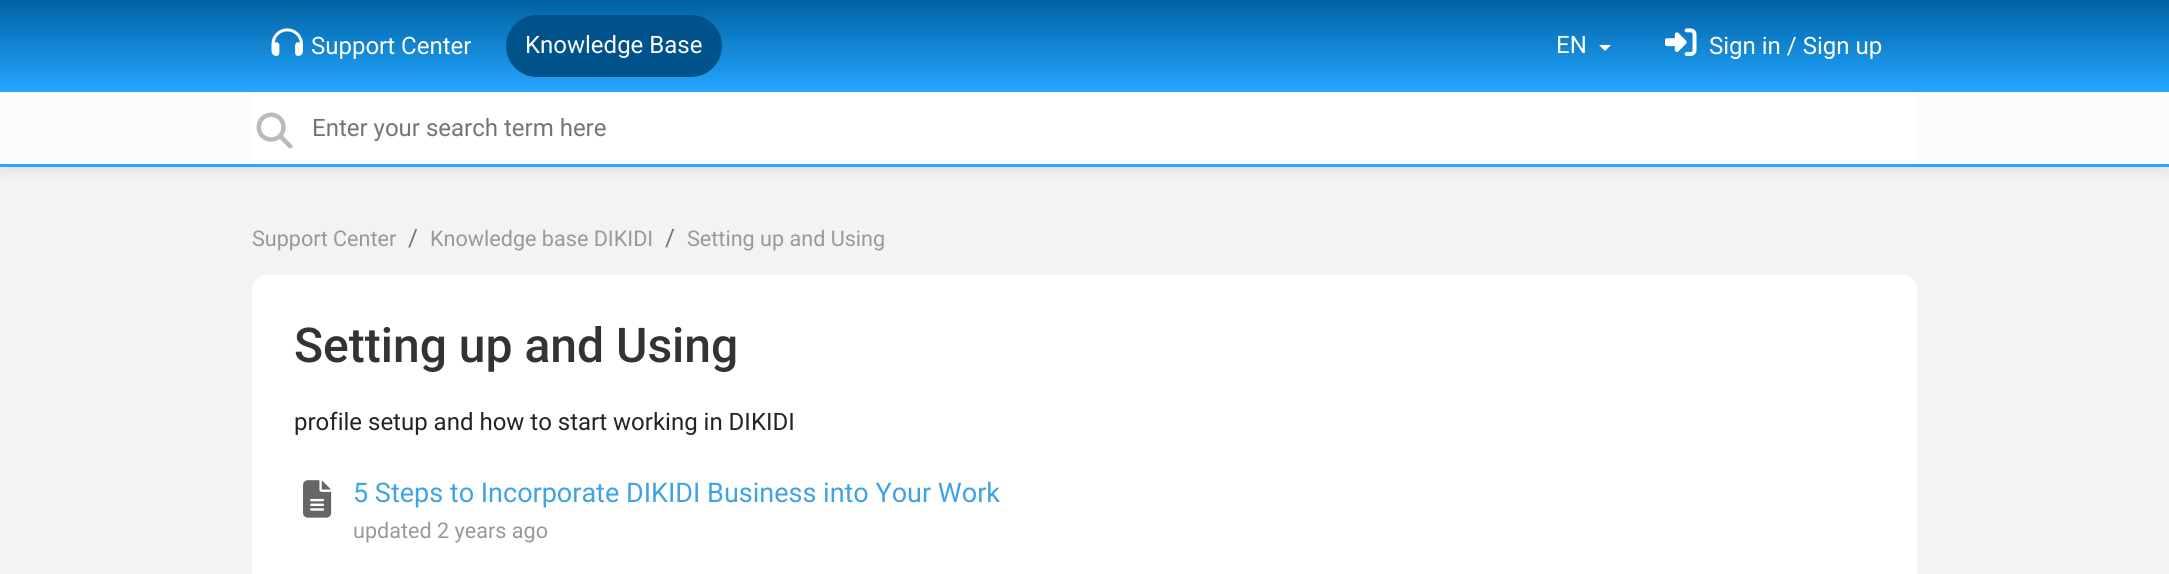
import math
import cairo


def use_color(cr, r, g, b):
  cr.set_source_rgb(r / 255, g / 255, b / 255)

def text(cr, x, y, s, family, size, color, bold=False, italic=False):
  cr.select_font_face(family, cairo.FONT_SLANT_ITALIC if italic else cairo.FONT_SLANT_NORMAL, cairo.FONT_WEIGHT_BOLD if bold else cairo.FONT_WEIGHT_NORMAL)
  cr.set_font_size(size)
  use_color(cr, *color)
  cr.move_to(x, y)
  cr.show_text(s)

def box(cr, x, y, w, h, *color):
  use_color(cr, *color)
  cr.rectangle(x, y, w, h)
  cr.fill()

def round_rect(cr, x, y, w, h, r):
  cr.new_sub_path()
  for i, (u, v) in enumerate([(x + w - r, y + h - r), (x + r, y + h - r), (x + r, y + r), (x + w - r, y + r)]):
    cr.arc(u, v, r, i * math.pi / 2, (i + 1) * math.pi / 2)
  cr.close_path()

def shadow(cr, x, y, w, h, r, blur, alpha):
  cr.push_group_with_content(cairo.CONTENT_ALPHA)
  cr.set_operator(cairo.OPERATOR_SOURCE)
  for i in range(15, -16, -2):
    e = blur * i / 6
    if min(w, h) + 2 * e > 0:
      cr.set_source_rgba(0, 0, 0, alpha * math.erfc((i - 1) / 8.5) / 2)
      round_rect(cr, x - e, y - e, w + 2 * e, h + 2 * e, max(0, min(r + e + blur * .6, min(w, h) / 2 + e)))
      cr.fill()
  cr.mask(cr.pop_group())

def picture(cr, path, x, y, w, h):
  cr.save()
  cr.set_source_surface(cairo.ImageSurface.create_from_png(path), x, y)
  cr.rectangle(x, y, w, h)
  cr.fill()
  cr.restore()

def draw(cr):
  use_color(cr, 243, 243, 243)
  cr.paint()
  gradient = cairo.LinearGradient(1085, 0, 1085, 92)
  gradient.add_color_stop_rgba(0, 0, 0.384, 0.643, 1)
  gradient.add_color_stop_rgba(1, 0.141, 0.655, 1, 1)
  cr.set_source(gradient)
  cr.rectangle(0, 0, 2169, 92)
  cr.fill()
  picture(cr, "img_01.png", 271, 28, 32, 28)
  use_color(cr, 0, 83, 138)
  round_rect(cr, 506, 15, 216, 62, 31)
  cr.fill()
  use_color(cr, 255, 255, 255)
  cr.new_path()
  cr.move_to(1599, 45)
  cr.line_to(1611, 45)
  cr.line_to(1605, 51)
  cr.close_path()
  cr.fill()
  picture(cr, "img_02.png", 1665, 28, 32, 28)
  use_color(cr, 100, 100, 100)
  shadow(cr, 0, 99, 2169, 75, 0, 4, 0.1)
  box(cr, 0, 92, 2169, 72, 252, 252, 252)
  box(cr, 0, 164, 2169, 3, 36, 167, 255)
  box(cr, 252, 92, 1665, 72, 255, 255, 255)
  picture(cr, "img_03.png", 256, 112, 37, 37)
  round_rect(cr, 252, 275, 1665, 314, 15)
  cr.fill()
  picture(cr, "img_04.png", 303, 480, 29, 38)
  text(cr, 311, 54, "Support Center", "Roboto", 24, (255, 255, 255))
  text(cr, 525, 53, "Knowledge Base", "Roboto", 24, (255, 255, 255))
  text(cr, 1556, 53, "EN", "Roboto", 24, (255, 255, 255))
  text(cr, 1709, 54, "Sign in / Sign up", "Roboto", 24, (255, 255, 255))
  text(cr, 312, 136, "Enter your search term here", "Roboto", 24, (117, 117, 117))
  text(cr, 252, 246, "Support Center", "Roboto", 21.6, (153, 153, 153))
  text(cr, 408, 246, "/", "Roboto", 24, (108, 117, 125))
  text(cr, 430, 246, "Knowledge base DIKIDI", "Roboto", 21.6, (153, 153, 153))
  text(cr, 665, 246, "/", "Roboto", 24, (108, 117, 125))
  text(cr, 687, 246, "Setting up and Using", "Roboto", 21.6, (153, 153, 153))
  text(cr, 294, 362, "Setting up and Using", "Roboto Medium", 48, (51, 51, 51))
  text(cr, 294, 430, "profile setup and how to start working in DIKIDI", "Roboto", 24, (33, 37, 41))
  text(cr, 353, 502, "5 Steps to Incorporate DIKIDI Business into Your Work", "Roboto", 27, (63, 162, 228))
  text(cr, 353, 538, "updated 2 years ago", "Roboto", 21.6, (153, 153, 153))


surface = cairo.ImageSurface(cairo.FORMAT_RGB24, 2169, 574)
cr = cairo.Context(surface)
options = cairo.FontOptions()
options.set_hint_metrics(cairo.HINT_METRICS_OFF)
options.set_hint_style(cairo.HINT_STYLE_NONE)
cr.set_font_options(options)
cr.set_miter_limit(4)
draw(cr)
surface.write_to_png("out.png")
